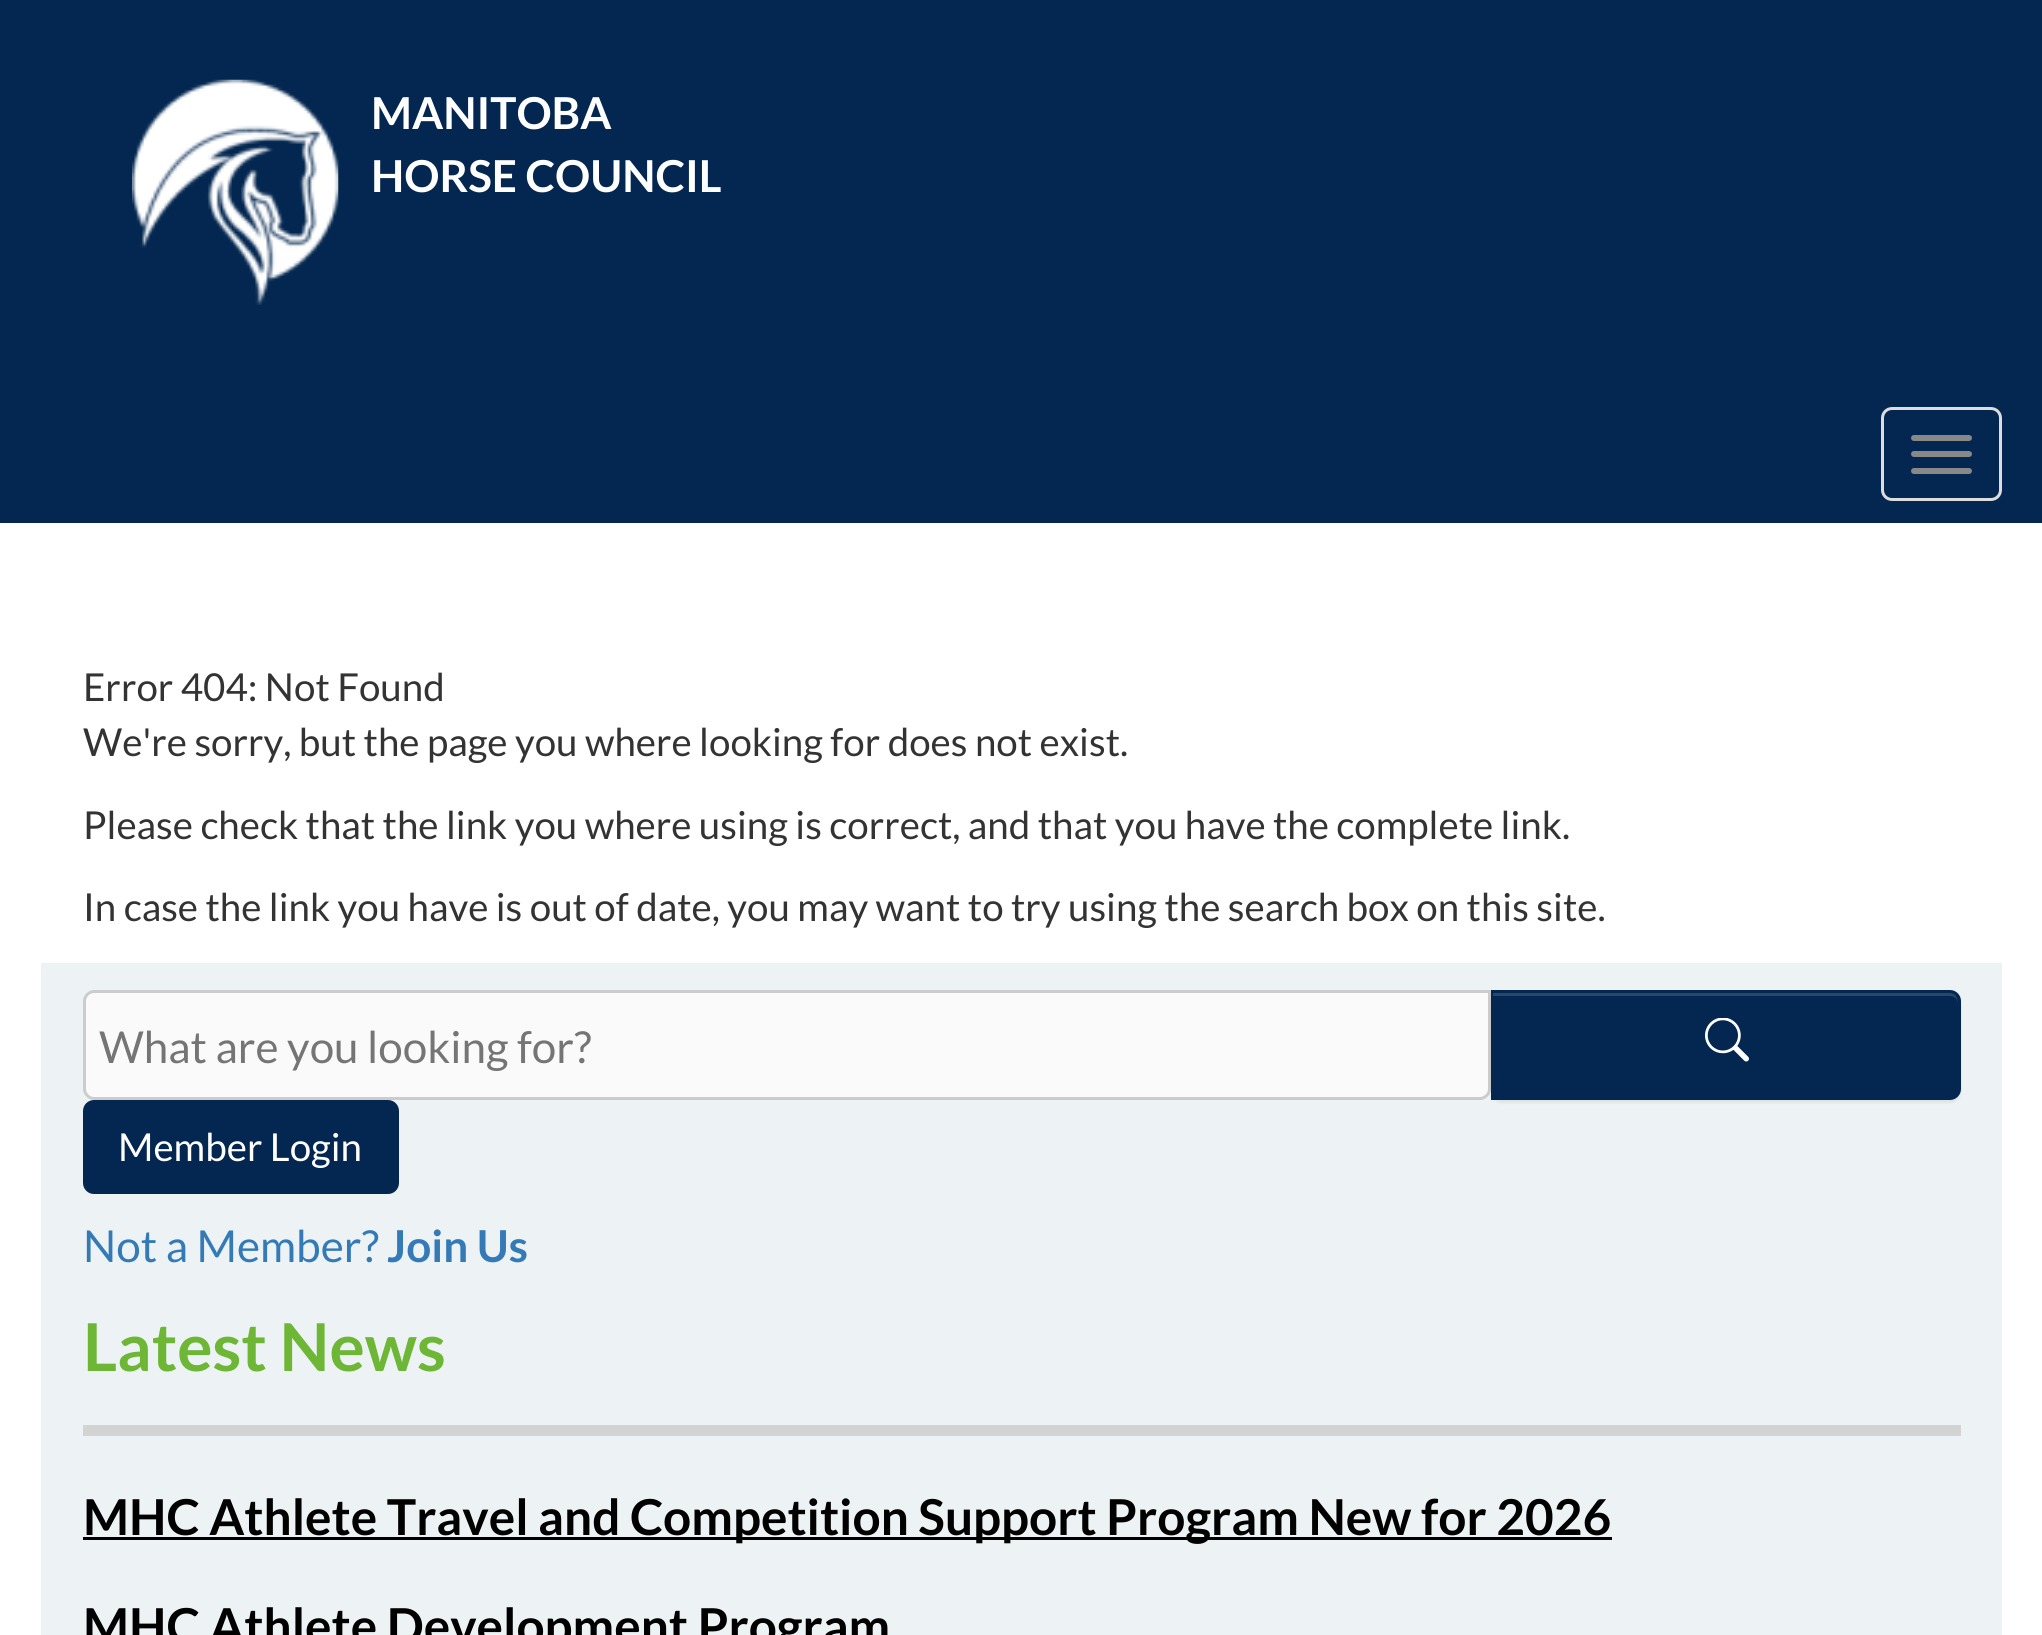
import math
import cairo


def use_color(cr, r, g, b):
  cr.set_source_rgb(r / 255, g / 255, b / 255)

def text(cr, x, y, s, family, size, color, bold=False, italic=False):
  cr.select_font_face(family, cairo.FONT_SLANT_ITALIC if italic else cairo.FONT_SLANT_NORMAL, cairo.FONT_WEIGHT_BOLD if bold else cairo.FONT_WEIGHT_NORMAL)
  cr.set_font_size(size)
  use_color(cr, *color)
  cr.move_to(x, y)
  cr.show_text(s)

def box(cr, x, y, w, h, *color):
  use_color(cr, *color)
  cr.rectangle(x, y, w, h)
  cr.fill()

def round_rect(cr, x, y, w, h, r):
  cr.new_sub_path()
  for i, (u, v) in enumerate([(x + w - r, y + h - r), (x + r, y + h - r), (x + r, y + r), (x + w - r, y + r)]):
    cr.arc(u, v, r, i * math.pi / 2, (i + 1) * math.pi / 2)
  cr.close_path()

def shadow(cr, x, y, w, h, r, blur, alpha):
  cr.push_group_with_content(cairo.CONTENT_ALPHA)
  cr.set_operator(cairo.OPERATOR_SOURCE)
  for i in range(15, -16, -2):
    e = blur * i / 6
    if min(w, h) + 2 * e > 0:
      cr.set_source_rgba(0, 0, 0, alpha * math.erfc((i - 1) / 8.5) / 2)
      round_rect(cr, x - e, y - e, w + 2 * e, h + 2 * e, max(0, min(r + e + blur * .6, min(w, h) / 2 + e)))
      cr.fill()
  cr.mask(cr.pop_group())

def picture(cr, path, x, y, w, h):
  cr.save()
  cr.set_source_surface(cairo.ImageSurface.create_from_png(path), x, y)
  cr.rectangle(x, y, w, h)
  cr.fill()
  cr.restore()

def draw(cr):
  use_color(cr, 255, 255, 255)
  cr.paint()
  box(cr, 0, 0, 2042, 523, 3, 39, 80)
  picture(cr, "img_01.png", 132, 79, 207, 226)
  round_rect(cr, 1882.5, 408.5, 118, 91, 9.5)
  use_color(cr, 221, 221, 221)
  cr.set_line_width(3)
  cr.stroke()
  use_color(cr, 136, 136, 136)
  round_rect(cr, 1911, 435, 61, 6, 3)
  cr.fill()
  round_rect(cr, 1911, 451, 61, 6, 3)
  cr.fill()
  round_rect(cr, 1911, 468, 61, 6, 3)
  cr.fill()
  box(cr, 41, 963, 1961, 672, 237, 243, 244)
  use_color(cr, 250, 250, 250)
  cr.new_path()
  cr.move_to(94, 991.5)
  cr.line_to(1489.5, 991.5)
  cr.line_to(1489.5, 1089)
  cr.curve_to(1489.5, 1094, 1485, 1098.5, 1480, 1098.5)
  cr.line_to(94, 1098.5)
  cr.curve_to(89, 1098.5, 84.5, 1094, 84.5, 1089)
  cr.line_to(84.5, 1001)
  cr.curve_to(84.5, 996, 89, 991.5, 94, 991.5)
  cr.close_path()
  cr.fill_preserve()
  use_color(cr, 204, 204, 204)
  cr.stroke()
  use_color(cr, 0, 0, 0)
  shadow(cr, 1491, 993, 470, 110, 11, 1.5, 0.07)
  use_color(cr, 3, 39, 80)
  cr.new_path()
  cr.move_to(1491, 990)
  cr.line_to(1950, 990)
  cr.curve_to(1956, 990, 1961, 995, 1961, 1001)
  cr.line_to(1961, 1089)
  cr.curve_to(1961, 1095, 1956, 1100, 1950, 1100)
  cr.line_to(1491, 1100)
  cr.close_path()
  cr.fill()
  use_color(cr, 41, 71, 106)
  cr.new_path()
  cr.move_to(1493, 996)
  cr.line_to(1950, 996)
  cr.curve_to(1954, 996, 1958, 999, 1958, 1004)
  cr.curve_to(1958, 999, 1956, 993, 1950, 993)
  cr.line_to(1493, 993)
  cr.close_path()
  cr.fill()
  picture(cr, "img_02.png", 1705, 1018, 44, 44)
  use_color(cr, 3, 39, 80)
  round_rect(cr, 83, 1100, 316, 94, 11)
  cr.fill()
  box(cr, 83, 1425, 1878, 11, 211, 211, 211)
  box(cr, 83, 1537, 1529, 3, 0, 0, 0)
  text(cr, 371, 129, "MANITOBA", "Lato", 44, (255, 255, 255), bold=True)
  text(cr, 371, 192, "HORSE COUNCIL", "Lato", 44, (255, 255, 255), bold=True)
  text(cr, 83, 701, "Error 404: Not Found", "Lato", 38.5, (51, 51, 51))
  text(cr, 83, 756, "We're sorry, but the page you where looking for does not exist.", "Lato", 38.5, (51, 51, 51))
  text(cr, 83, 839, "Please check that the link you where using is correct, and that you have the complete link.", "Lato", 38.5, (51, 51, 51))
  text(cr, 83, 921, "In case the link you have is out of date, you may want to try using the search box on this site.", "Lato", 38.5, (51, 51, 51))
  text(cr, 99, 1063, "What are you looking for?", "Lato", 44, (117, 117, 117))
  text(cr, 118, 1161, "Member Login", "Lato", 38.5, (255, 255, 255))
  text(cr, 83, 1262, "Not a Member?", "Lato", 44, (51, 122, 183))
  text(cr, 387, 1262, "Join Us", "Lato", 44, (51, 122, 183), bold=True)
  text(cr, 83, 1371, "Latest News", "Lato", 66, (110, 182, 54), bold=True)
  text(cr, 83, 1535, "MHC Athlete Travel and Competition Support Program New for 2026", "Lato", 49.5, (0, 0, 0), bold=True)
  text(cr, 83, 1644, "MHC Athlete Development Program", "Lato", 49.5, (0, 0, 0), bold=True)


surface = cairo.ImageSurface(cairo.FORMAT_RGB24, 2042, 1635)
cr = cairo.Context(surface)
options = cairo.FontOptions()
options.set_hint_metrics(cairo.HINT_METRICS_OFF)
options.set_hint_style(cairo.HINT_STYLE_NONE)
cr.set_font_options(options)
cr.set_miter_limit(4)
draw(cr)
surface.write_to_png("out.png")
